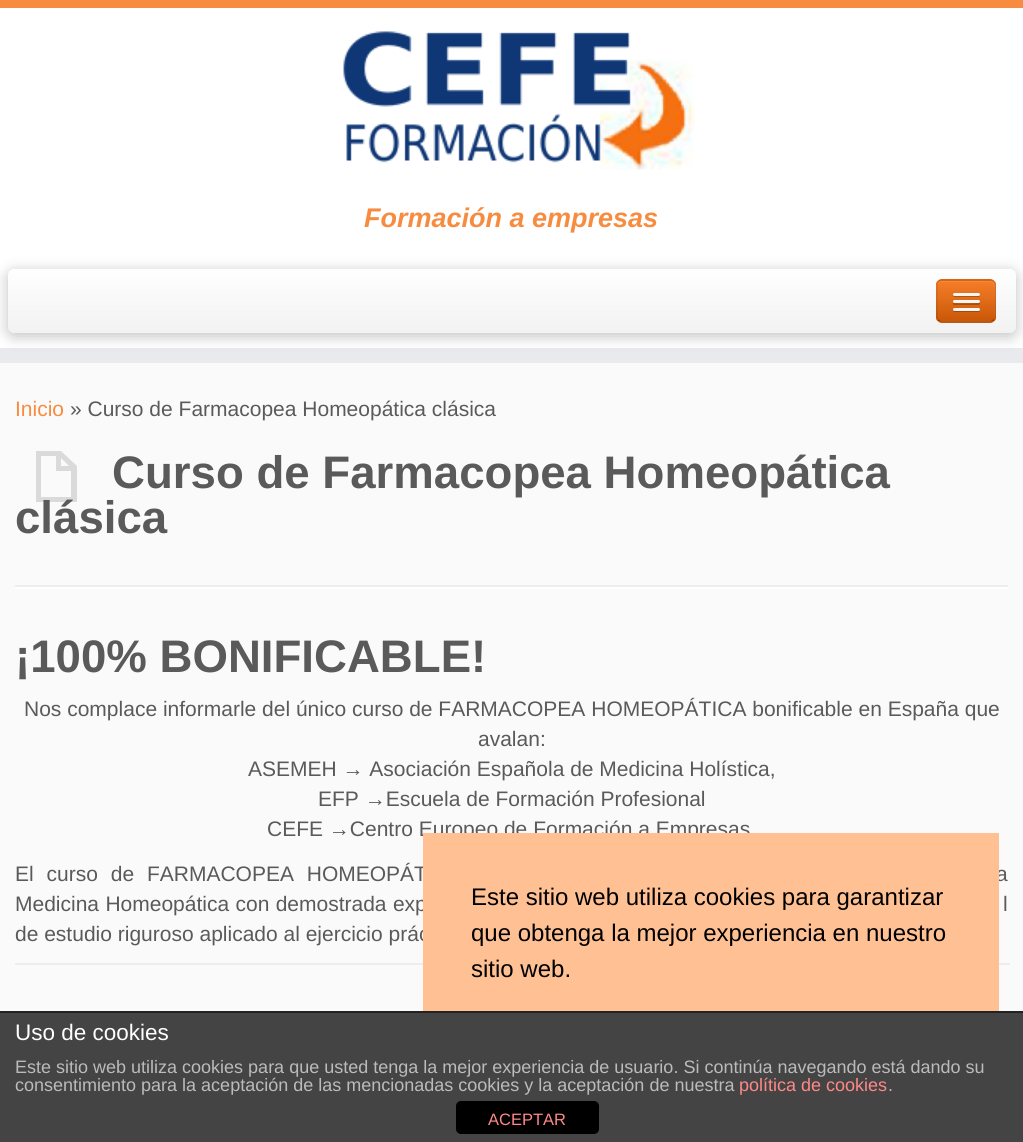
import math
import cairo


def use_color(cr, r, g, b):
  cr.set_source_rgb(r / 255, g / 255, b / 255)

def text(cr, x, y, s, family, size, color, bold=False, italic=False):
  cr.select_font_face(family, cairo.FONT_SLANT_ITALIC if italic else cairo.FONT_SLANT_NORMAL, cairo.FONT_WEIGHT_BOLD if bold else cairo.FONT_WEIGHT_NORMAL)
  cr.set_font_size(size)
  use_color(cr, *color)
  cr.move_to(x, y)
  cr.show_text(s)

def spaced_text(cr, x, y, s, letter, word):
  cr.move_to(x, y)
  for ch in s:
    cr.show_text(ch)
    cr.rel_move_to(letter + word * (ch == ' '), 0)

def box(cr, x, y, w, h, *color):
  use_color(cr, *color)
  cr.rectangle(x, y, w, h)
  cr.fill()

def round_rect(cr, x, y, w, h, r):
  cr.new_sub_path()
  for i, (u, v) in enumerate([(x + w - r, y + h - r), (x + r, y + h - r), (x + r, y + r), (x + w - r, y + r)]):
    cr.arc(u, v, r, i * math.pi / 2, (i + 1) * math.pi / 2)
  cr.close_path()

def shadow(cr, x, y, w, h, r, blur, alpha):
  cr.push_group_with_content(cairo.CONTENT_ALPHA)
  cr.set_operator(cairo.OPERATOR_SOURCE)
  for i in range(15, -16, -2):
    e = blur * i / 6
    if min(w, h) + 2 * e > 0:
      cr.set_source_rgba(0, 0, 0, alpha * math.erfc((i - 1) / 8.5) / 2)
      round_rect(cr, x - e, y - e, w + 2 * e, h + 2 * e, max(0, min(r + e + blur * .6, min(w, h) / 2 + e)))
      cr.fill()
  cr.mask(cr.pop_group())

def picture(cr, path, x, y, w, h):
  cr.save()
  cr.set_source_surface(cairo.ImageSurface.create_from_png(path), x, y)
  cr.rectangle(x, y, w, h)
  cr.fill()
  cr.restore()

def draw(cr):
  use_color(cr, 250, 250, 250)
  cr.paint()
  box(cr, 0, 8, 1023, 340, 255, 255, 255)
  box(cr, 0, 0, 1023, 8, 247, 140, 64)
  box(cr, 0, 348, 1023, 15, 233, 234, 238)
  picture(cr, "img_01.png", 343, 31, 352, 139)
  use_color(cr, 0, 0, 0)
  shadow(cr, 8, 272, 1008, 64, 6, 7.5, 0.25)
  gradient = cairo.LinearGradient(512, 268, 512, 333)
  gradient.add_color_stop_rgba(0, 1, 1, 1, 1)
  gradient.add_color_stop_rgba(1, 0.949, 0.949, 0.949, 1)
  cr.set_source(gradient)
  round_rect(cr, 8, 269, 1008, 64, 6)
  cr.fill()
  use_color(cr, 228, 110, 27)
  round_rect(cr, 936, 279, 60, 44, 6)
  cr.fill()
  cr.save()
  round_rect(cr, 936, 279, 60, 44, 6)
  cr.clip()
  gradient = cairo.LinearGradient(966, 281, 966, 321)
  gradient.add_color_stop_rgba(0, 0.965, 0.49, 0.157, 1)
  gradient.add_color_stop_rgba(1, 0.788, 0.345, 0.031, 1)
  cr.set_source(gradient)
  cr.rectangle(936, 281, 60, 40)
  cr.fill()
  cr.restore()
  cr.set_source_rgba(1, 1, 1, 0.1)
  cr.new_path()
  cr.move_to(942, 282)
  cr.line_to(974, 282)
  cr.curve_to(995, 282, 994, 278, 994, 297)
  cr.line_to(994, 319)
  cr.curve_to(995, 318, 995, 317, 995, 316)
  cr.line_to(995, 286)
  cr.curve_to(995, 283, 993, 281, 990, 281)
  cr.line_to(943, 281)
  cr.curve_to(940, 281, 938, 283, 938, 286)
  cr.curve_to(938, 284, 940, 282, 942, 282)
  cr.close_path()
  cr.fill()
  cr.new_path()
  cr.move_to(993.5, 320)
  cr.curve_to(992.5, 321, 991.5, 322, 990, 322)
  cr.line_to(942, 322)
  cr.curve_to(940.5, 322, 939.5, 321, 938.5, 320)
  cr.set_source_rgba(0, 0, 0, 0.25)
  cr.set_line_width(1.5)
  cr.stroke()
  cr.new_path()
  cr.move_to(938.5, 320)
  cr.curve_to(937.5, 319, 937, 318, 937, 316.5)
  cr.line_to(937, 285)
  cr.curve_to(937, 283.5, 937.5, 282.5, 938.5, 281.5)
  cr.curve_to(939.5, 280.5, 940.5, 280, 942, 280)
  cr.line_to(990, 280)
  cr.curve_to(991.5, 280, 992.5, 280.5, 993.5, 281.5)
  cr.curve_to(994.5, 282.5, 995, 283.5, 995, 285)
  cr.line_to(995, 316.5)
  cr.curve_to(995, 318, 994.5, 319, 993.5, 320)
  cr.set_source_rgba(0, 0, 0, 0.1)
  cr.stroke()
  use_color(cr, 172, 83, 21)
  cr.new_path()
  cr.move_to(953, 295)
  cr.curve_to(952.5, 298, 958, 297, 958.5, 297)
  cr.line_to(978.5, 297)
  cr.curve_to(980, 297, 980.5, 295, 979.5, 294.5)
  cr.line_to(978.5, 295.5)
  cr.curve_to(977, 296, 953.5, 295.5, 953, 295)
  cr.close_path()
  cr.fill()
  use_color(cr, 245, 245, 245)
  round_rect(cr, 953, 293, 27, 3, 1.5)
  cr.fill()
  use_color(cr, 165, 78, 16)
  cr.new_path()
  cr.move_to(953, 303)
  cr.curve_to(951.5, 306, 958.5, 305, 958.5, 305)
  cr.line_to(979, 305)
  cr.curve_to(980, 304.5, 980.5, 303, 979.5, 302)
  cr.line_to(978, 303)
  cr.curve_to(976, 303.5, 954, 303.5, 953, 303)
  cr.close_path()
  cr.fill()
  use_color(cr, 245, 245, 245)
  round_rect(cr, 953, 300, 27, 3, 1.5)
  cr.fill()
  use_color(cr, 159, 73, 12)
  cr.new_path()
  cr.move_to(953, 310)
  cr.curve_to(952.5, 313, 958, 312, 958.5, 312)
  cr.line_to(978.5, 312)
  cr.curve_to(980, 312, 980.5, 310, 979.5, 309.5)
  cr.line_to(978.5, 310.5)
  cr.curve_to(977, 311, 953.5, 310.5, 953, 310)
  cr.close_path()
  cr.fill()
  use_color(cr, 245, 245, 245)
  round_rect(cr, 953, 308, 27, 3, 1.5)
  cr.fill()
  box(cr, 15, 585, 993, 2, 238, 238, 238)
  box(cr, 15, 587, 993, 2, 255, 255, 255)
  box(cr, 15, 963, 408, 2, 237, 237, 237)
  box(cr, 999, 963, 11, 2, 237, 237, 237)
  box(cr, 0, 1013, 1023, 129, 68, 68, 68)
  box(cr, 0, 1011, 1023, 2, 34, 34, 34)
  use_color(cr, 0, 0, 0)
  round_rect(cr, 456, 1101, 143, 33, 5)
  cr.fill()
  text(cr, 364, 227, "Formación a empresas", "Liberation Sans", 27, (247, 140, 64), bold=True, italic=True)
  text(cr, 15, 416, "Inicio", "Liberation Sans", 21, (247, 140, 64))
  text(cr, 70, 416, "» Curso de Farmacopea Homeopática clásica", "Liberation Sans", 21, (90, 90, 90))
  text(cr, 112, 488, "Curso de Farmacopea Homeopática", "Liberation Sans", 45.6, (90, 90, 90), bold=True)
  text(cr, 15, 533, "clásica", "Liberation Sans", 45.6, (90, 90, 90), bold=True)
  cr.set_source_rgba(0.353, 0.353, 0.353, 0.2)
  cr.new_path()
  cr.move_to(36, 502)
  cr.line_to(36, 451)
  cr.line_to(61, 451)
  cr.line_to(77, 466)
  cr.line_to(77, 502)
  cr.close_path()
  cr.move_to(41, 497)
  cr.line_to(71, 497)
  cr.line_to(71, 471)
  cr.line_to(56, 471)
  cr.line_to(56, 456)
  cr.line_to(41, 456)
  cr.close_path()
  cr.move_to(61, 466)
  cr.line_to(69, 466)
  cr.line_to(61, 458)
  cr.close_path()
  cr.fill()
  text(cr, 15, 672, "¡100% BONIFICABLE!", "Liberation Sans", 45.6, (90, 90, 90), bold=True)
  text(cr, 24, 716, "Nos complace informarle del único curso de FARMACOPEA HOMEOPÁTICA bonificable en España que", "Liberation Sans", 21, (90, 90, 90))
  text(cr, 478, 746, "avalan:", "Liberation Sans", 21, (90, 90, 90))
  text(cr, 248, 776, "ASEMEH → Asociación Española de Medicina Holística,", "Liberation Sans", 21, (90, 90, 90))
  text(cr, 318, 806, "EFP →Escuela de Formación Profesional", "Liberation Sans", 21, (90, 90, 90))
  text(cr, 267, 836, "CEFE →Centro Europeo de Formación a Empresas", "Liberation Sans", 21, (90, 90, 90))
  spaced_text(cr, 15, 881, "El curso de FARMACOPEA HOMEOPÁT", 0, 7)
  spaced_text(cr, 996, 881, "a", 0, 7)
  spaced_text(cr, 15, 911, "Medicina Homeopática con demostrada exp", 0, 0.5)
  spaced_text(cr, 1003, 911, "l", 0, 0.5)
  text(cr, 15, 941, "de estudio riguroso aplicado al ejercicio prác", "Liberation Sans", 21, (90, 90, 90))
  box(cr, 423, 833, 576, 178, 255, 193, 148)
  text(cr, 471, 905, "Este sitio web utiliza cookies para garantizar", "Liberation Sans", 24, (0, 0, 0))
  text(cr, 471, 941, "que obtenga la mejor experiencia en nuestro", "Liberation Sans", 24, (0, 0, 0))
  text(cr, 471, 977, "sitio web.", "Liberation Sans", 24, (0, 0, 0))
  text(cr, 15, 1040, "Uso de cookies", "Liberation Sans", 22.5, (255, 255, 255))
  text(cr, 15, 1073, "Este sitio web utiliza cookies para que usted tenga la mejor experiencia de usuario. Si continúa navegando está dando su", "Liberation Sans", 18, (187, 187, 187))
  text(cr, 15, 1091, "consentimiento para la aceptación de las mencionadas cookies y la aceptación de nuestra", "Liberation Sans", 18, (187, 187, 187))
  text(cr, 739, 1091, "política de cookies", "Liberation Sans", 18, (255, 136, 136))
  text(cr, 888, 1091, ".", "Liberation Sans", 18, (187, 187, 187))
  text(cr, 488, 1125, "ACEPTAR", "Liberation Sans", 16.5, (255, 136, 136))


surface = cairo.ImageSurface(cairo.FORMAT_RGB24, 1023, 1142)
cr = cairo.Context(surface)
options = cairo.FontOptions()
options.set_hint_metrics(cairo.HINT_METRICS_OFF)
options.set_hint_style(cairo.HINT_STYLE_NONE)
cr.set_font_options(options)
cr.set_miter_limit(4)
draw(cr)
surface.write_to_png("out.png")
